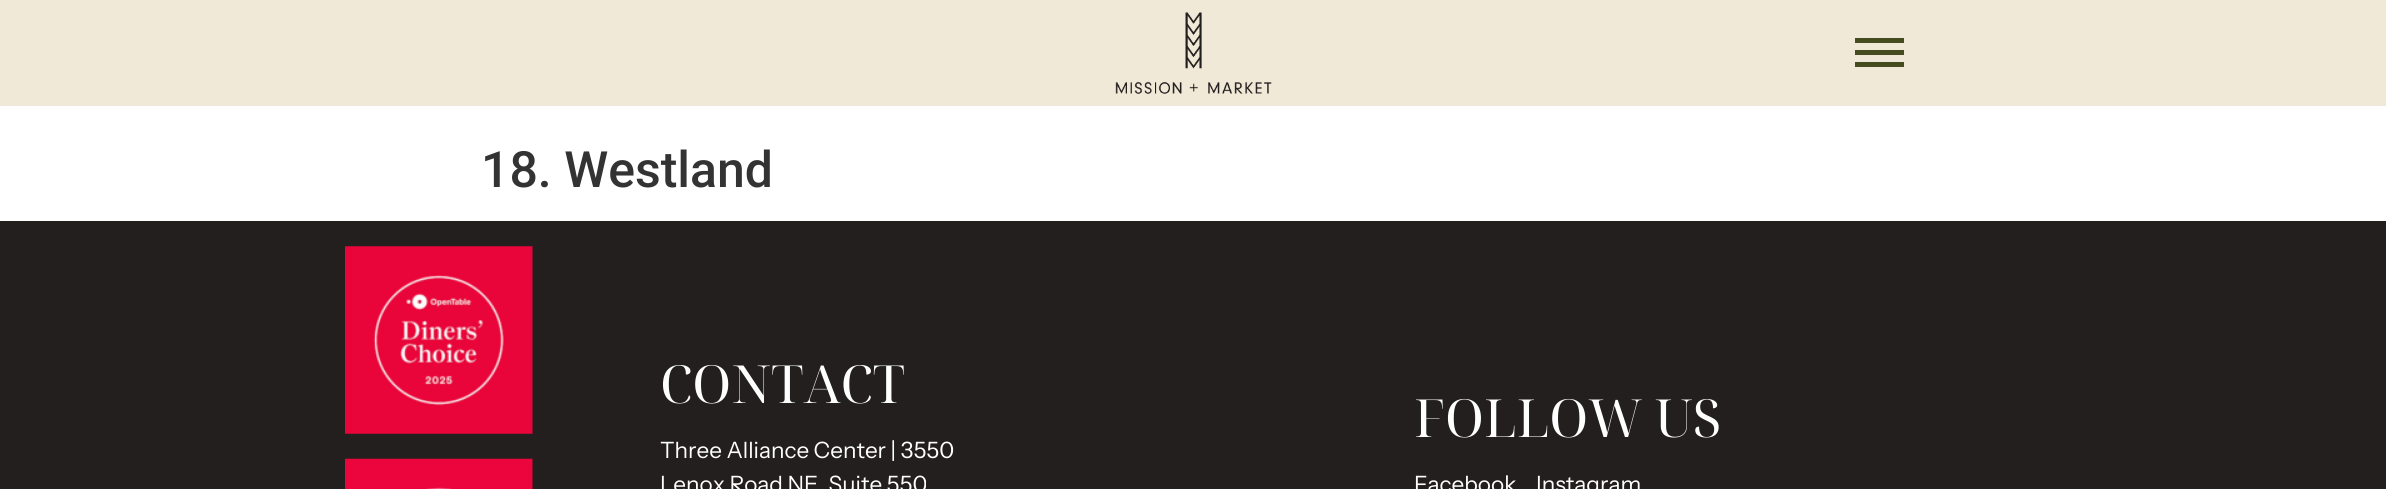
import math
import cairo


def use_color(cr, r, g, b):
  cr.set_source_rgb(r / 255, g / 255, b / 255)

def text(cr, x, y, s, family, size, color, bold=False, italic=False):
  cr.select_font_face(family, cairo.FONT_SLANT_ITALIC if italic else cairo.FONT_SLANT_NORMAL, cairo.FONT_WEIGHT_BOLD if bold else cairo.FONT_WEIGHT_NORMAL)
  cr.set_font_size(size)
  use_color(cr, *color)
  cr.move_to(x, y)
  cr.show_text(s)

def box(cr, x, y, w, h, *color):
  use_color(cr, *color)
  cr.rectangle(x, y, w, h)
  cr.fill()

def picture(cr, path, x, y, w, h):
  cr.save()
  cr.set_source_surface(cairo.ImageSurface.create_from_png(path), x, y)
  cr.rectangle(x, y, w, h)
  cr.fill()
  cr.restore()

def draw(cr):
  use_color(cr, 255, 255, 255)
  cr.paint()
  box(cr, 0, 0, 2386, 106, 240, 233, 215)
  picture(cr, "img_01.png", 1115, 12, 157, 82)
  use_color(cr, 70, 75, 32)
  cr.new_path()
  cr.move_to(1855, 67)
  cr.line_to(1855, 62)
  cr.line_to(1904, 62)
  cr.line_to(1904, 67)
  cr.close_path()
  cr.move_to(1855, 55)
  cr.line_to(1855, 50)
  cr.line_to(1904, 50)
  cr.line_to(1904, 55)
  cr.close_path()
  cr.move_to(1855, 43)
  cr.line_to(1855, 38)
  cr.line_to(1904, 38)
  cr.line_to(1904, 43)
  cr.close_path()
  cr.fill()
  box(cr, 0, 221, 2386, 268, 35, 31, 31)
  picture(cr, "img_02.png", 345, 246, 188, 188)
  picture(cr, "img_03.png", 345, 458, 188, 31)
  text(cr, 481, 187, "18. Westland", "Roboto Medium", 50, (51, 51, 51))
  text(cr, 660, 403, "CONTACT", "Noto Serif Display", 52.5, (255, 255, 255))
  text(cr, 660, 458, "Three Alliance Center | 3550", "Instrument Sans", 22.5, (255, 255, 255))
  text(cr, 660, 492, "Lenox Road NE, Suite 550", "Instrument Sans", 22.5, (255, 255, 255))
  text(cr, 1414, 437, "FOLLOW US", "Noto Serif Display", 52.5, (255, 255, 255))
  text(cr, 1414, 492, "Facebook", "Instrument Sans", 22.5, (255, 255, 255))
  text(cr, 1536, 492, "Instagram", "Instrument Sans", 22.5, (255, 255, 255))


surface = cairo.ImageSurface(cairo.FORMAT_RGB24, 2386, 489)
cr = cairo.Context(surface)
options = cairo.FontOptions()
options.set_hint_metrics(cairo.HINT_METRICS_OFF)
options.set_hint_style(cairo.HINT_STYLE_NONE)
cr.set_font_options(options)
cr.set_miter_limit(4)
draw(cr)
surface.write_to_png("out.png")
